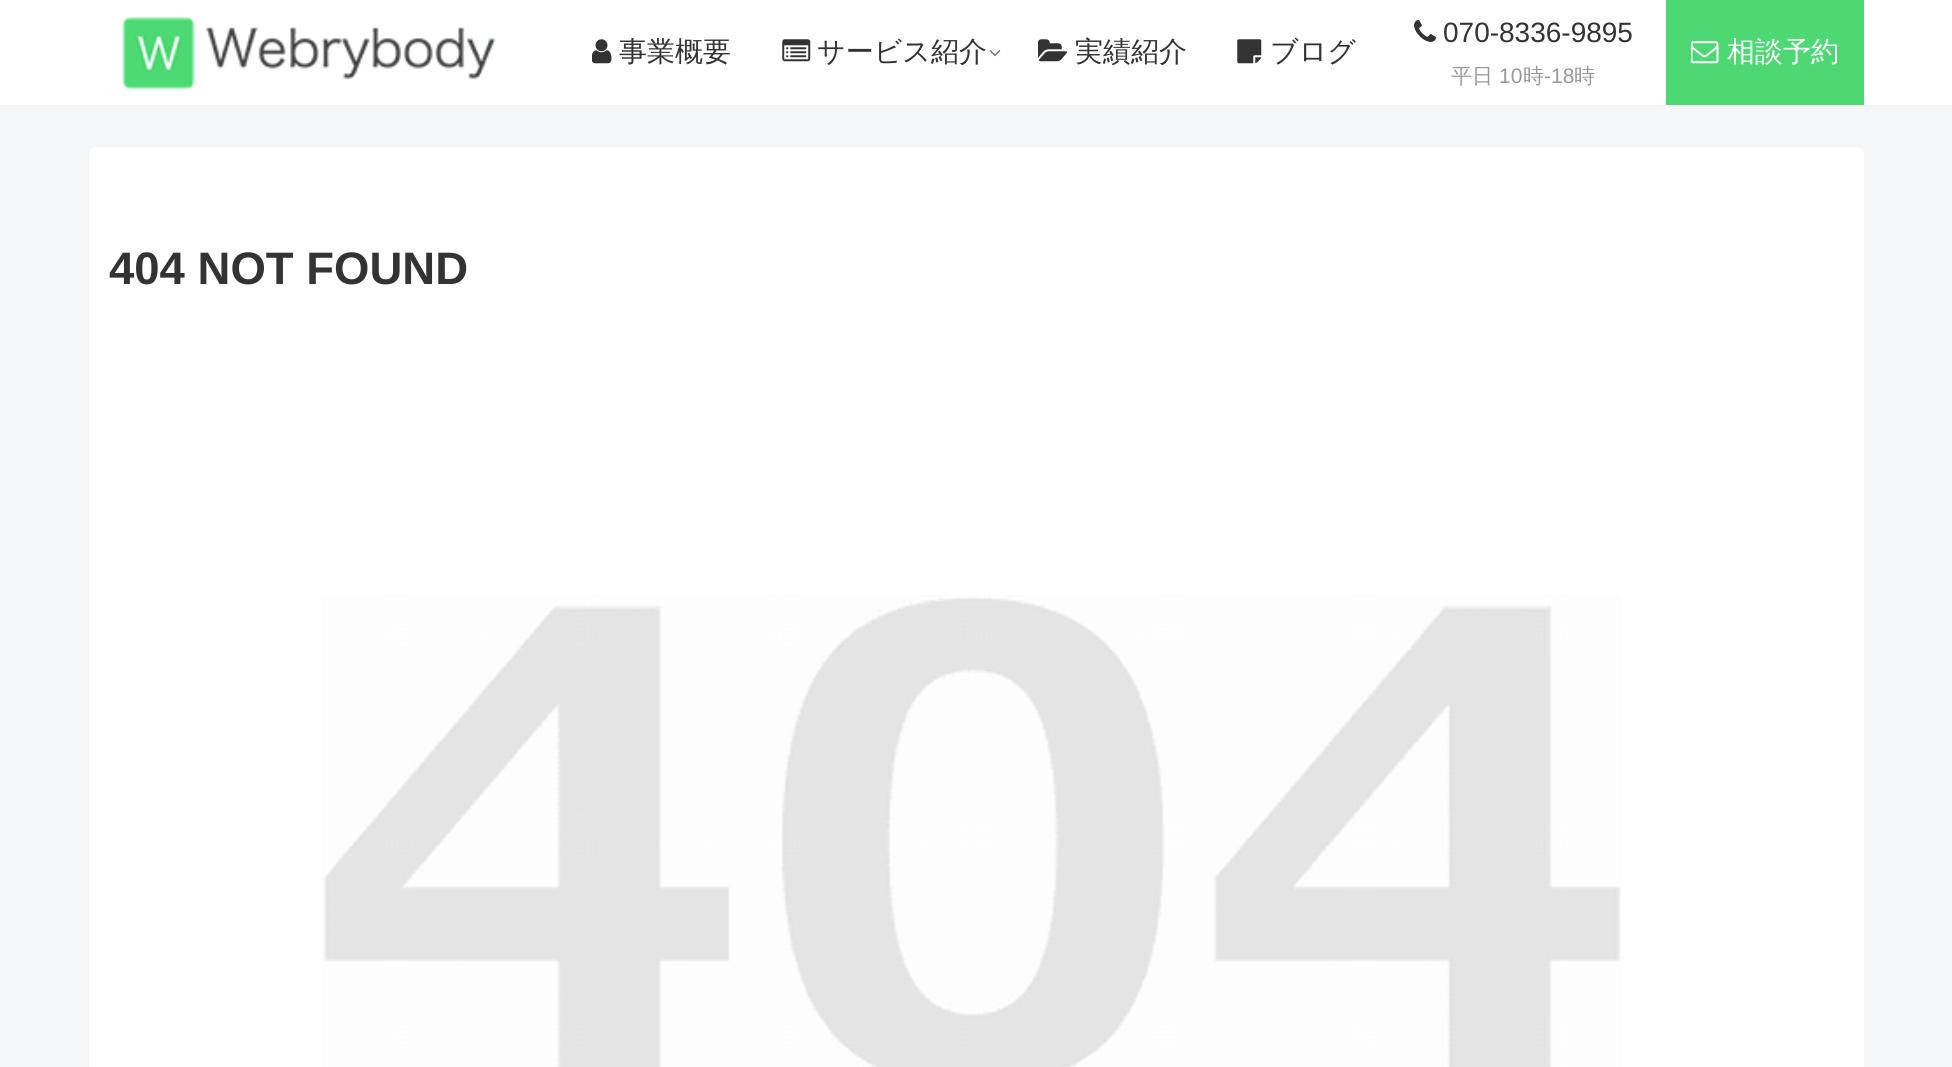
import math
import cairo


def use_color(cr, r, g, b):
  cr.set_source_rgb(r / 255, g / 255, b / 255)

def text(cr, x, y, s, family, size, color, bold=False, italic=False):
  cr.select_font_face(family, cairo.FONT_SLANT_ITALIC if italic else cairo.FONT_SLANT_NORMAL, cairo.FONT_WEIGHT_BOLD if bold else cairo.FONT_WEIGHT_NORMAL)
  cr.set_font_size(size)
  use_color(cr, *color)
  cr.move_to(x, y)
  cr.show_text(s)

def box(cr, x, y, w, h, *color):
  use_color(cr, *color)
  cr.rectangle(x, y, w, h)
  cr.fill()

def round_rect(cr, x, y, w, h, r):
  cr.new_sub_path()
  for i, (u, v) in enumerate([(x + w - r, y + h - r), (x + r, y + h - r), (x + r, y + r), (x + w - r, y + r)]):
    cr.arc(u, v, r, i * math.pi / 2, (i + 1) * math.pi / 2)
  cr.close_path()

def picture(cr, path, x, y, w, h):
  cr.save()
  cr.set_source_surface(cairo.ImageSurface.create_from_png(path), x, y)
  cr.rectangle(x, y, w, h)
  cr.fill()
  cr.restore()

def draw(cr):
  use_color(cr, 244, 245, 247)
  cr.paint()
  box(cr, 0, 0, 1952, 105, 255, 255, 255)
  picture(cr, "img_01.png", 122, 17, 374, 73)
  picture(cr, "img_02.png", 592, 39, 20, 25)
  picture(cr, "img_03.png", 782, 39, 29, 23)
  picture(cr, "img_04.png", 989, 50, 12, 7)
  picture(cr, "img_05.png", 1038, 39, 30, 23)
  picture(cr, "img_06.png", 1237, 39, 25, 25)
  picture(cr, "img_07.png", 1414, 20, 22, 22)
  box(cr, 1666, 0, 198, 105, 77, 216, 116)
  picture(cr, "img_08.png", 1691, 41, 28, 23)
  use_color(cr, 255, 255, 255)
  round_rect(cr, 89, 147, 1775, 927, 7)
  cr.fill()
  picture(cr, "img_09.png", 322, 595, 1299, 472)
  text(cr, 619, 61, "事業概要", "WenQuanYi Zen Hei Medium", 28, (51, 51, 51))
  text(cr, 817, 61, "サービス紹介", "WenQuanYi Zen Hei Medium", 28, (51, 51, 51))
  text(cr, 1075, 61, "実績紹介", "WenQuanYi Zen Hei Medium", 28, (51, 51, 51))
  text(cr, 1270, 61, "ブログ", "WenQuanYi Zen Hei Medium", 28, (51, 51, 51))
  text(cr, 1443, 42, "070-8336-9895", "Liberation Sans", 28, (51, 51, 51))
  text(cr, 1451, 83, "平日", "WenQuanYi Zen Hei Medium", 21, (153, 153, 153))
  text(cr, 1499, 83, "10", "Liberation Sans", 21, (153, 153, 153))
  text(cr, 1523, 83, "時", "WenQuanYi Zen Hei Medium", 21, (153, 153, 153))
  text(cr, 1544, 83, "-18", "Liberation Sans", 21, (153, 153, 153))
  text(cr, 1574, 83, "時", "WenQuanYi Zen Hei Medium", 21, (153, 153, 153))
  text(cr, 1727, 61, "相談予約", "WenQuanYi Zen Hei Medium", 28, (255, 255, 255))
  text(cr, 109, 284, "404 NOT FOUND", "Liberation Sans", 45.5, (51, 51, 51), bold=True)


surface = cairo.ImageSurface(cairo.FORMAT_RGB24, 1952, 1067)
cr = cairo.Context(surface)
options = cairo.FontOptions()
options.set_hint_metrics(cairo.HINT_METRICS_OFF)
options.set_hint_style(cairo.HINT_STYLE_NONE)
cr.set_font_options(options)
cr.set_miter_limit(4)
draw(cr)
surface.write_to_png("out.png")
